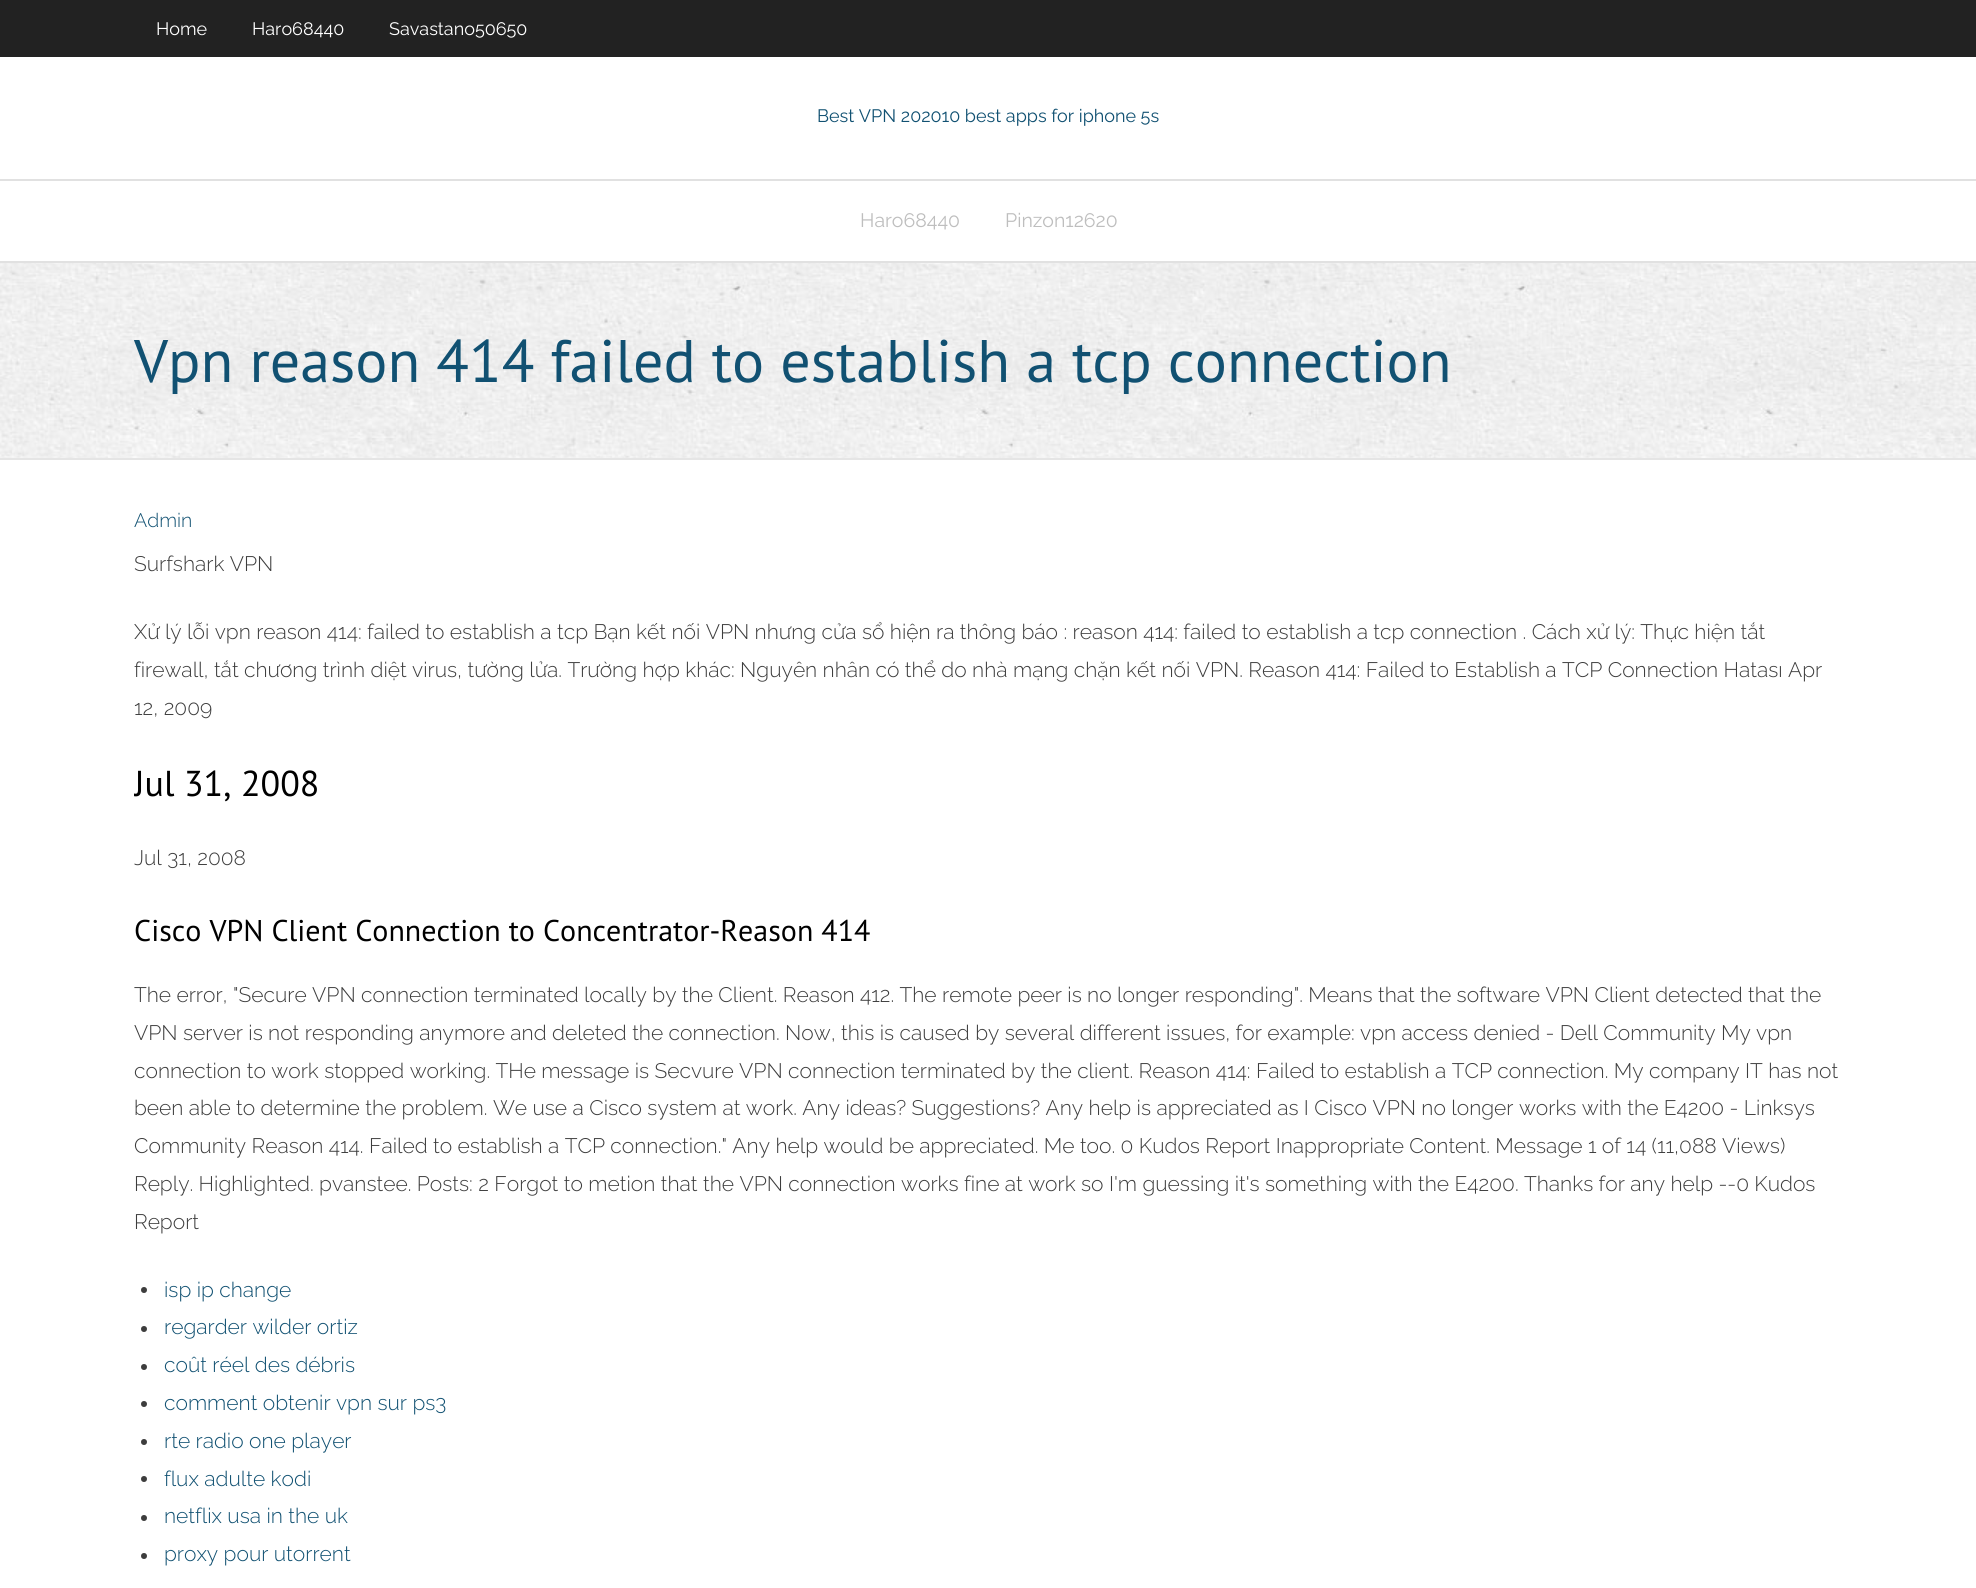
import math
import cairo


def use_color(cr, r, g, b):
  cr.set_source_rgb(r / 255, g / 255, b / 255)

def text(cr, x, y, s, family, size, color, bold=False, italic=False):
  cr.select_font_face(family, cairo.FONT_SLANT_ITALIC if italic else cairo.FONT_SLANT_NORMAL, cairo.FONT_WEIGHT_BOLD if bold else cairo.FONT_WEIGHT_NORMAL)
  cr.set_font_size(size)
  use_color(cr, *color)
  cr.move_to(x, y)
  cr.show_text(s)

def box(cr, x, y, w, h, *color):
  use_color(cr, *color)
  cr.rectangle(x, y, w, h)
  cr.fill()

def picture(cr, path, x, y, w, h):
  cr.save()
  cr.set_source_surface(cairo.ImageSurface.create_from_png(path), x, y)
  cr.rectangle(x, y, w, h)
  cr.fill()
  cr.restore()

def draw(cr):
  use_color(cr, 255, 255, 255)
  cr.paint()
  box(cr, 0, 0, 1976, 57, 34, 34, 34)
  box(cr, 0, 179, 1976, 2, 225, 225, 225)
  box(cr, 0, 261, 1976, 2, 225, 225, 225)
  picture(cr, "img_01.png", 0, 263, 1976, 195)
  box(cr, 0, 458, 1976, 2, 229, 229, 229)
  use_color(cr, 61, 61, 61)
  cr.arc(144, 1290, 3, 0, 2 * math.pi)
  cr.fill()
  cr.arc(144, 1329, 3, 0, 2 * math.pi)
  cr.fill()
  cr.arc(144, 1367, 3, 0, 2 * math.pi)
  cr.fill()
  cr.arc(144, 1404, 3, 0, 2 * math.pi)
  cr.fill()
  cr.arc(144, 1442, 3, 0, 2 * math.pi)
  cr.fill()
  cr.arc(144, 1479, 3, 0, 2 * math.pi)
  cr.fill()
  cr.arc(144, 1518, 3, 0, 2 * math.pi)
  cr.fill()
  cr.arc(144, 1556, 3, 0, 2 * math.pi)
  cr.fill()
  text(cr, 156, 35, "Home", "Raleway", 18, (255, 255, 255))
  text(cr, 252, 35, "Haro68440", "Raleway", 18, (255, 255, 255))
  text(cr, 389, 35, "Savastano50650", "Raleway", 18, (255, 255, 255))
  text(cr, 817, 122, "Best VPN 202010 best apps for iphone 5s", "Raleway", 18, (17, 81, 114))
  text(cr, 860, 227, "Haro68440", "Raleway", 19.5, (190, 190, 190))
  text(cr, 1005, 227, "Pinzon12620", "Raleway", 19.5, (190, 190, 190))
  text(cr, 134, 382, "Vpn reason 414 failed to establish a tcp connection", "PT Sans", 60, (17, 81, 114))
  text(cr, 134, 527, "Admin", "Raleway Light", 19.5, (17, 81, 114))
  text(cr, 134, 571, "Surfshark VPN", "Raleway Light", 21, (61, 61, 61))
  text(cr, 134, 639, "Xử lý lỗi vpn reason 414: failed to establish a tcp Bạn kết nối VPN nhưng cửa sổ hiện ra thông báo : reason 414: failed to establish a tcp connection . Cách xử lý: Thực hiện tắt", "Raleway Light", 21, (61, 61, 61))
  text(cr, 134, 677, "firewall, tắt chương trình diệt virus, tường lửa. Trường hợp khác: Nguyên nhân có thể do nhà mạng chặn kết nối VPN. Reason 414: Failed to Establish a TCP Connection Hatası Apr", "Raleway Light", 21, (61, 61, 61))
  text(cr, 134, 715, "12, 2009", "Raleway Light", 21, (61, 61, 61))
  cr.save()
  cr.rectangle(134, 504, 1710, 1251)
  cr.clip()
  text(cr, 134, 796, "Jul 31, 2008", "PT Sans", 36, (0, 0, 0))
  cr.restore()
  text(cr, 134, 865, "Jul 31, 2008", "Raleway Light", 21, (61, 61, 61))
  text(cr, 134, 941, "Cisco VPN Client Connection to Concentrator-Reason 414", "PT Sans", 30, (0, 0, 0))
  text(cr, 134, 1002, "The error, \"Secure VPN connection terminated locally by the Client. Reason 412. The remote peer is no longer responding\". Means that the software VPN Client detected that the", "Raleway Light", 21, (61, 61, 61))
  text(cr, 134, 1040, "VPN server is not responding anymore and deleted the connection. Now, this is caused by several different issues, for example: vpn access denied - Dell Community My vpn", "Raleway Light", 21, (61, 61, 61))
  text(cr, 134, 1078, "connection to work stopped working. THe message is Secvure VPN connection terminated by the client. Reason 414: Failed to establish a TCP connection. My company IT has not", "Raleway Light", 21, (61, 61, 61))
  text(cr, 134, 1115, "been able to determine the problem. We use a Cisco system at work. Any ideas? Suggestions? Any help is appreciated as I Cisco VPN no longer works with the E4200 - Linksys", "Raleway Light", 21, (61, 61, 61))
  text(cr, 134, 1153, "Community Reason 414. Failed to establish a TCP connection.\" Any help would be appreciated. Me too. 0 Kudos Report Inappropriate Content. Message 1 of 14 (11,088 Views)", "Raleway Light", 21, (61, 61, 61))
  text(cr, 134, 1191, "Reply. Highlighted. pvanstee. Posts: 2 Forgot to metion that the VPN connection works fine at work so I'm guessing it's something with the E4200. Thanks for any help --0 Kudos", "Raleway Light", 21, (61, 61, 61))
  text(cr, 134, 1229, "Report", "Raleway Light", 21, (61, 61, 61))
  text(cr, 164, 1297, "isp ip change", "Raleway Light", 21, (17, 81, 114))
  text(cr, 164, 1334, "regarder wilder ortiz", "Raleway Light", 21, (17, 81, 114))
  text(cr, 164, 1372, "coût réel des débris", "Raleway Light", 21, (17, 81, 114))
  text(cr, 164, 1410, "comment obtenir vpn sur ps3", "Raleway Light", 21, (17, 81, 114))
  text(cr, 164, 1448, "rte radio one player", "Raleway Light", 21, (17, 81, 114))
  text(cr, 164, 1486, "flux adulte kodi", "Raleway Light", 21, (17, 81, 114))
  text(cr, 164, 1523, "netflix usa in the uk", "Raleway Light", 21, (17, 81, 114))
  text(cr, 164, 1561, "proxy pour utorrent", "Raleway Light", 21, (17, 81, 114))


surface = cairo.ImageSurface(cairo.FORMAT_RGB24, 1976, 1588)
cr = cairo.Context(surface)
options = cairo.FontOptions()
options.set_hint_metrics(cairo.HINT_METRICS_OFF)
options.set_hint_style(cairo.HINT_STYLE_NONE)
cr.set_font_options(options)
cr.set_miter_limit(4)
draw(cr)
surface.write_to_png("out.png")
